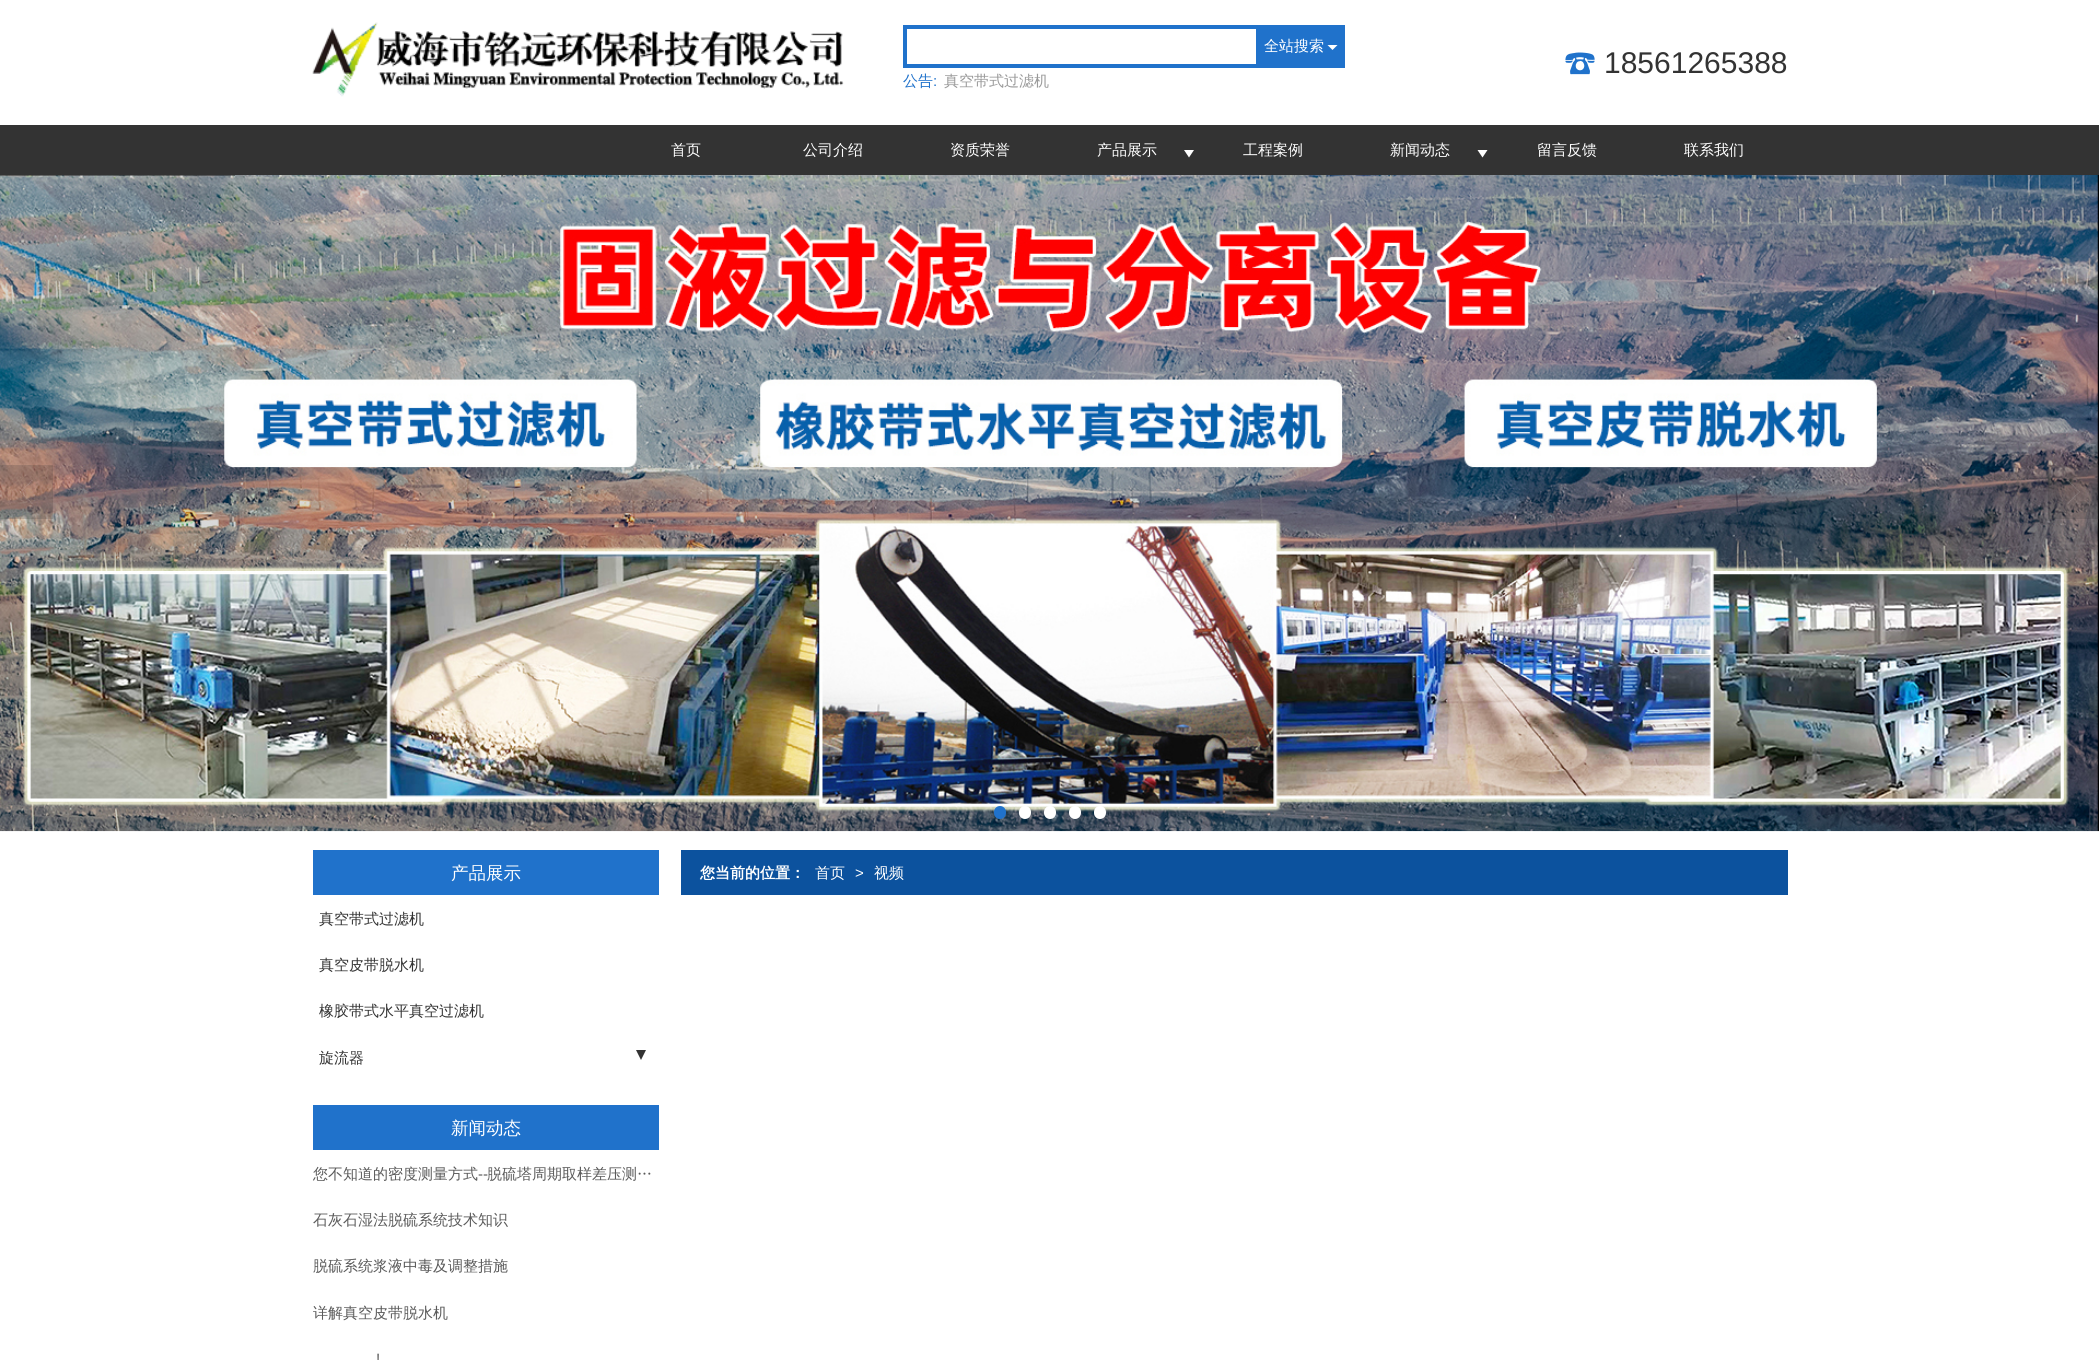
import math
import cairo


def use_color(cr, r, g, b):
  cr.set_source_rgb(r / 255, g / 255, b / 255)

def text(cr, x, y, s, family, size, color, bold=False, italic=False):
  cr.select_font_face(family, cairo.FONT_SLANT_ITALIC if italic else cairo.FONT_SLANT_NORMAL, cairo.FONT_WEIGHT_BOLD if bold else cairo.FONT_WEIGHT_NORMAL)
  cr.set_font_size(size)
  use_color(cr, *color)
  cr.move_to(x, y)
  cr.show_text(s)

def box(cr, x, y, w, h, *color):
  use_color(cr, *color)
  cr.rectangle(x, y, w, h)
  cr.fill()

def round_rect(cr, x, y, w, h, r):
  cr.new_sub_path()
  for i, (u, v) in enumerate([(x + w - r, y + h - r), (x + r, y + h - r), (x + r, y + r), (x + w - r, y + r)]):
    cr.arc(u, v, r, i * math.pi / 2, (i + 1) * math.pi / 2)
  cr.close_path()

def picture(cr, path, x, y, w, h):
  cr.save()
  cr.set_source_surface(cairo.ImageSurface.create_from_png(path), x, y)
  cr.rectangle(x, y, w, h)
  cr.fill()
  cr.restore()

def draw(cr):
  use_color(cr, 255, 255, 255)
  cr.paint()
  picture(cr, "img_01.png", 312, 22, 532, 75)
  cr.rectangle(905, 27, 394, 39)
  use_color(cr, 32, 114, 203)
  cr.set_line_width(4)
  cr.stroke()
  box(cr, 1256, 25, 89, 43, 32, 114, 203)
  use_color(cr, 255, 255, 255)
  cr.new_path()
  cr.move_to(1327.5, 45)
  cr.line_to(1337.5, 45)
  cr.line_to(1332.5, 50)
  cr.close_path()
  cr.fill()
  picture(cr, "img_02.png", 1565, 52, 30, 23)
  box(cr, 0, 125, 2099, 50, 51, 51, 51)
  use_color(cr, 255, 255, 255)
  cr.new_path()
  cr.move_to(1184, 150)
  cr.line_to(1194, 150)
  cr.line_to(1189, 157.5)
  cr.close_path()
  cr.fill()
  cr.new_path()
  cr.move_to(1477.5, 150)
  cr.line_to(1487.5, 150)
  cr.line_to(1482.5, 157.5)
  cr.close_path()
  cr.fill()
  picture(cr, "img_03.png", 0, 175, 2099, 657)
  cr.set_source_rgba(0, 0, 0, 0.4)
  cr.rectangle(0, 175, 235, 1)
  cr.fill()
  cr.set_source_rgba(0.224, 0.224, 0.224, 0.2)
  cr.rectangle(0, 465, 53, 54)
  cr.fill()
  picture(cr, "img_04.png", 20, 480, 13, 24)
  cr.rectangle(2048, 465, 51, 54)
  cr.fill()
  picture(cr, "img_05.png", 2067, 480, 13, 24)
  use_color(cr, 32, 114, 203)
  round_rect(cr, 994, 806, 12, 13, 6)
  cr.fill()
  use_color(cr, 255, 255, 255)
  round_rect(cr, 1019, 806, 12, 13, 6)
  cr.fill()
  round_rect(cr, 1044, 806, 12, 13, 6)
  cr.fill()
  round_rect(cr, 1069, 806, 12, 13, 6)
  cr.fill()
  round_rect(cr, 1094, 806, 12, 13, 6)
  cr.fill()
  box(cr, 313, 850, 346, 45, 32, 114, 203)
  use_color(cr, 51, 51, 51)
  cr.new_path()
  cr.move_to(636, 1050)
  cr.line_to(646, 1050)
  cr.line_to(641, 1060)
  cr.close_path()
  cr.fill()
  box(cr, 313, 1105, 346, 45, 32, 114, 203)
  box(cr, 681, 850, 1107, 45, 12, 82, 158)
  text(cr, 1264, 51, "全站搜索", "WenQuanYi Zen Hei Medium", 15, (255, 255, 255))
  text(cr, 903, 86, "公告", "WenQuanYi Zen Hei Medium", 15, (32, 114, 203))
  text(cr, 933, 86, ":", "Liberation Sans", 15, (32, 114, 203))
  text(cr, 944, 86, "真空带式过滤机", "WenQuanYi Zen Hei Medium", 15, (153, 153, 153))
  text(cr, 1604, 73, "18561265388", "Liberation Sans", 30, (51, 51, 51))
  text(cr, 671, 155, "首页", "WenQuanYi Zen Hei Medium", 15, (255, 255, 255))
  text(cr, 803, 155, "公司介绍", "WenQuanYi Zen Hei Medium", 15, (255, 255, 255))
  text(cr, 950, 155, "资质荣誉", "WenQuanYi Zen Hei Medium", 15, (255, 255, 255))
  text(cr, 1097, 155, "产品展示", "WenQuanYi Zen Hei Medium", 15, (255, 255, 255))
  text(cr, 1243, 155, "工程案例", "WenQuanYi Zen Hei Medium", 15, (255, 255, 255))
  text(cr, 1390, 155, "新闻动态", "WenQuanYi Zen Hei Medium", 15, (255, 255, 255))
  text(cr, 1537, 155, "留言反馈", "WenQuanYi Zen Hei Medium", 15, (255, 255, 255))
  text(cr, 1684, 155, "联系我们", "WenQuanYi Zen Hei Medium", 15, (255, 255, 255))
  text(cr, 451, 879, "产品展示", "WenQuanYi Zen Hei Medium", 17.5, (255, 255, 255))
  text(cr, 319, 924, "真空带式过滤机", "WenQuanYi Zen Hei Medium", 15, (51, 51, 51))
  text(cr, 319, 970, "真空皮带脱水机", "WenQuanYi Zen Hei Medium", 15, (51, 51, 51))
  text(cr, 319, 1016, "橡胶带式水平真空过滤机", "WenQuanYi Zen Hei Medium", 15, (51, 51, 51))
  text(cr, 319, 1063, "旋流器", "WenQuanYi Zen Hei Medium", 15, (51, 51, 51))
  text(cr, 451, 1134, "新闻动态", "WenQuanYi Zen Hei Medium", 17.5, (255, 255, 255))
  text(cr, 313, 1179, "您不知道的密度测量方式", "WenQuanYi Zen Hei Medium", 15, (90, 90, 90))
  text(cr, 478, 1179, "--", "Liberation Sans", 15, (90, 90, 90))
  text(cr, 487, 1179, "脱硫塔周期取样差压测…", "WenQuanYi Zen Hei Medium", 15, (90, 90, 90))
  text(cr, 313, 1225, "石灰石湿法脱硫系统技术知识", "WenQuanYi Zen Hei Medium", 15, (90, 90, 90))
  text(cr, 313, 1271, "脱硫系统浆液中毒及调整措施", "WenQuanYi Zen Hei Medium", 15, (90, 90, 90))
  text(cr, 313, 1318, "详解真空皮带脱水机", "WenQuanYi Zen Hei Medium", 15, (90, 90, 90))
  text(cr, 376, 1364, "!", "Liberation Sans", 15, (90, 90, 90))
  text(cr, 700, 878, "您当前的位置：", "WenQuanYi Zen Hei", 15, (255, 255, 255), bold=True)
  text(cr, 815, 878, "首页", "WenQuanYi Zen Hei Medium", 15, (255, 255, 255))
  text(cr, 855, 878, ">", "Liberation Sans", 15, (255, 255, 255))
  text(cr, 874, 878, "视频", "WenQuanYi Zen Hei Medium", 15, (255, 255, 255))


surface = cairo.ImageSurface(cairo.FORMAT_RGB24, 2099, 1360)
cr = cairo.Context(surface)
options = cairo.FontOptions()
options.set_hint_metrics(cairo.HINT_METRICS_OFF)
options.set_hint_style(cairo.HINT_STYLE_NONE)
cr.set_font_options(options)
cr.set_miter_limit(4)
draw(cr)
surface.write_to_png("out.png")
